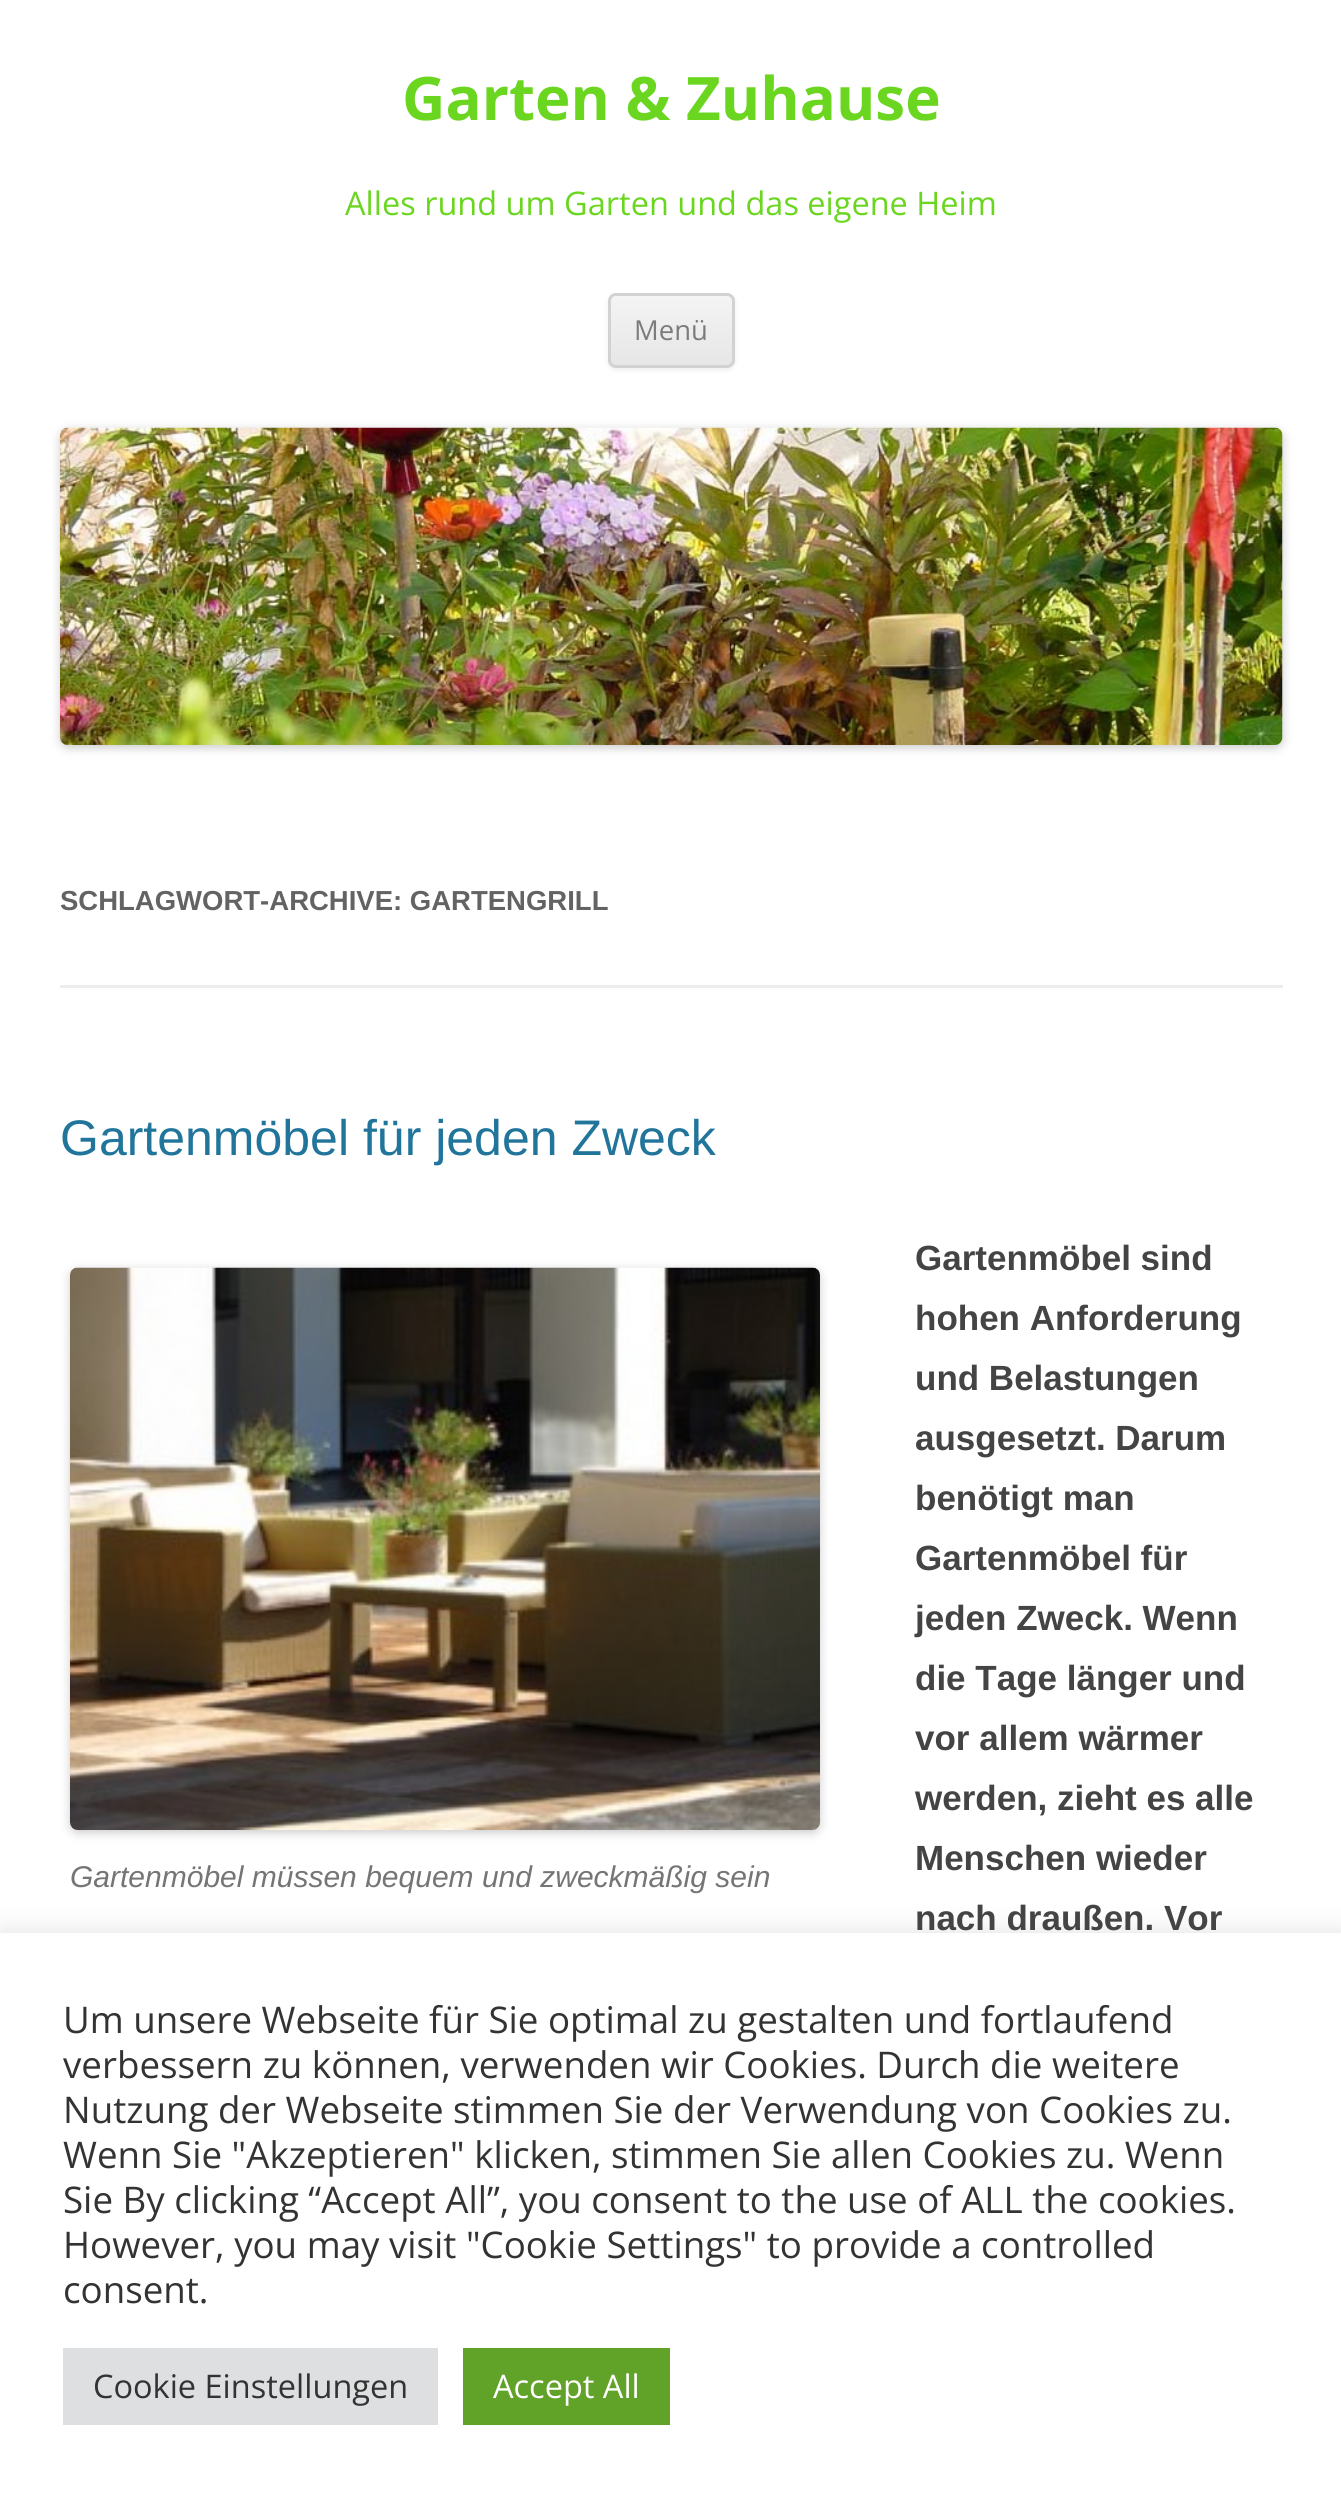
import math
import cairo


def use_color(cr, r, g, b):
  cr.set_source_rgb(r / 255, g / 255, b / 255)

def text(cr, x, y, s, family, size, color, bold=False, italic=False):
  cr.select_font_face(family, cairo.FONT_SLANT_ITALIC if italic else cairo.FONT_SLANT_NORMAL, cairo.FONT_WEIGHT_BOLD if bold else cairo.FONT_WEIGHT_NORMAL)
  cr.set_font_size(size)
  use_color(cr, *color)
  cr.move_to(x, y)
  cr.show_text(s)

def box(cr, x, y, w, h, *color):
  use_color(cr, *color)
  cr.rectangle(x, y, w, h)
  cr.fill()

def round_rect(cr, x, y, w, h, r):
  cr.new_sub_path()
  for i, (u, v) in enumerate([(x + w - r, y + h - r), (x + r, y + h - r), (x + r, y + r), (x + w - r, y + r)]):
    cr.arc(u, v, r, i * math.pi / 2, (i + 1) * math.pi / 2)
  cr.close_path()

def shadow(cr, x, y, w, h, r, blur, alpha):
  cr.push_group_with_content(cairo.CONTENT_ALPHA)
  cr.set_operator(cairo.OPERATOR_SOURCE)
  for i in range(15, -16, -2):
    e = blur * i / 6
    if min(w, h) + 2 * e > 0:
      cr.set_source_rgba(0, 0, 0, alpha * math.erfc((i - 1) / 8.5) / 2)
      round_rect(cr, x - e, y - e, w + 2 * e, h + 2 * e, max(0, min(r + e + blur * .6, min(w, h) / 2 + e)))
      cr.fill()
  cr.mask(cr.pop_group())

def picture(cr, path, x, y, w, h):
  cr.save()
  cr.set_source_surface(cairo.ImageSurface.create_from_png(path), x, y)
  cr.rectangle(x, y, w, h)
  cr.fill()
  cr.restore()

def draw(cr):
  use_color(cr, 255, 255, 255)
  cr.paint()
  use_color(cr, 64, 64, 64)
  shadow(cr, 608, 295, 127, 75, 8, 2.5, 0.1)
  cr.save()
  round_rect(cr, 608, 293, 127, 75, 8)
  cr.clip()
  gradient = cairo.LinearGradient(671, 295, 671, 365)
  gradient.add_color_stop_rgba(0, 0.957, 0.957, 0.957, 1)
  gradient.add_color_stop_rgba(1, 0.902, 0.902, 0.902, 1)
  cr.set_source(gradient)
  cr.rectangle(608, 295, 127, 70)
  cr.fill()
  cr.restore()
  round_rect(cr, 609.5, 294.5, 124, 72, 6.5)
  use_color(cr, 210, 210, 210)
  cr.set_line_width(3)
  cr.stroke()
  use_color(cr, 0, 0, 0)
  shadow(cr, 60, 430, 1223, 318, 8, 5, 0.2)
  picture(cr, "img_01.png", 60, 427, 1223, 318)
  box(cr, 60, 985, 1223, 3, 237, 237, 237)
  use_color(cr, 0, 0, 0)
  shadow(cr, 70, 1270, 750, 563, 8, 5, 0.2)
  picture(cr, "img_02.png", 70, 1267, 750, 563)
  use_color(cr, 172, 171, 171)
  shadow(cr, 0, 1930, 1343, 568, 0, 12.5, 0.3)
  box(cr, 0, 1933, 1341, 565, 255, 255, 255)
  box(cr, 63, 2348, 375, 77, 222, 223, 224)
  box(cr, 463, 2348, 207, 77, 97, 162, 41)
  text(cr, 402, 120, "Garten & Zuhause", "Open Sans", 60, (107, 214, 32), bold=True)
  text(cr, 345, 215, "Alles rund um Garten und das eigene Heim", "Open Sans", 32.5, (107, 214, 32))
  text(cr, 634, 340, "Menü", "Open Sans", 27.5, (124, 124, 124))
  text(cr, 60, 910, "SCHLAGWORT-ARCHIVE: GARTENGRILL", "Liberation Sans", 27.5, (99, 99, 99), bold=True)
  text(cr, 60, 1155, "Gartenmöbel für jeden Zweck", "Liberation Sans", 50, (33, 117, 155))
  text(cr, 70, 1887, "Gartenmöbel müssen bequem und zweckmäßig sein", "Liberation Sans", 30, (117, 117, 117), italic=True)
  text(cr, 915, 1270, "Gartenmöbel sind", "Liberation Sans", 35, (68, 68, 68), bold=True)
  text(cr, 915, 1330, "hohen Anforderung", "Liberation Sans", 35, (68, 68, 68), bold=True)
  text(cr, 915, 1390, "und Belastungen", "Liberation Sans", 35, (68, 68, 68), bold=True)
  text(cr, 915, 1450, "ausgesetzt. Darum", "Liberation Sans", 35, (68, 68, 68), bold=True)
  text(cr, 915, 1510, "benötigt man", "Liberation Sans", 35, (68, 68, 68), bold=True)
  text(cr, 915, 1570, "Gartenmöbel für", "Liberation Sans", 35, (68, 68, 68), bold=True)
  text(cr, 915, 1630, "jeden Zweck. Wenn", "Liberation Sans", 35, (68, 68, 68), bold=True)
  text(cr, 915, 1690, "die Tage länger und", "Liberation Sans", 35, (68, 68, 68), bold=True)
  text(cr, 915, 1750, "vor allem wärmer", "Liberation Sans", 35, (68, 68, 68), bold=True)
  text(cr, 915, 1810, "werden, zieht es alle", "Liberation Sans", 35, (68, 68, 68), bold=True)
  text(cr, 915, 1870, "Menschen wieder", "Liberation Sans", 35, (68, 68, 68), bold=True)
  text(cr, 915, 1930, "nach draußen. Vor", "Liberation Sans", 35, (68, 68, 68), bold=True)
  text(cr, 63, 2033, "Um unsere Webseite für Sie optimal zu gestalten und fortlaufend", "Open Sans", 36.7, (51, 51, 51))
  text(cr, 63, 2078, "verbessern zu können, verwenden wir Cookies. Durch die weitere", "Open Sans", 36.7, (51, 51, 51))
  text(cr, 63, 2123, "Nutzung der Webseite stimmen Sie der Verwendung von Cookies zu.", "Open Sans", 36.7, (51, 51, 51))
  text(cr, 63, 2168, "Wenn Sie \"Akzeptieren\" klicken, stimmen Sie allen Cookies zu. Wenn", "Open Sans", 36.7, (51, 51, 51))
  text(cr, 63, 2213, "Sie By clicking “Accept All”, you consent to the use of ALL the cookies.", "Open Sans", 36.7, (51, 51, 51))
  text(cr, 63, 2258, "However, you may visit \"Cookie Settings\" to provide a controlled", "Open Sans", 36.7, (51, 51, 51))
  text(cr, 63, 2303, "consent.", "Open Sans", 36.7, (51, 51, 51))
  text(cr, 93, 2398, "Cookie Einstellungen", "Open Sans", 32.5, (51, 51, 51))
  text(cr, 493, 2398, "Accept All", "Open Sans", 32.5, (255, 255, 255))


surface = cairo.ImageSurface(cairo.FORMAT_RGB24, 1341, 2498)
cr = cairo.Context(surface)
options = cairo.FontOptions()
options.set_hint_metrics(cairo.HINT_METRICS_OFF)
options.set_hint_style(cairo.HINT_STYLE_NONE)
cr.set_font_options(options)
cr.set_miter_limit(4)
draw(cr)
surface.write_to_png("out.png")
